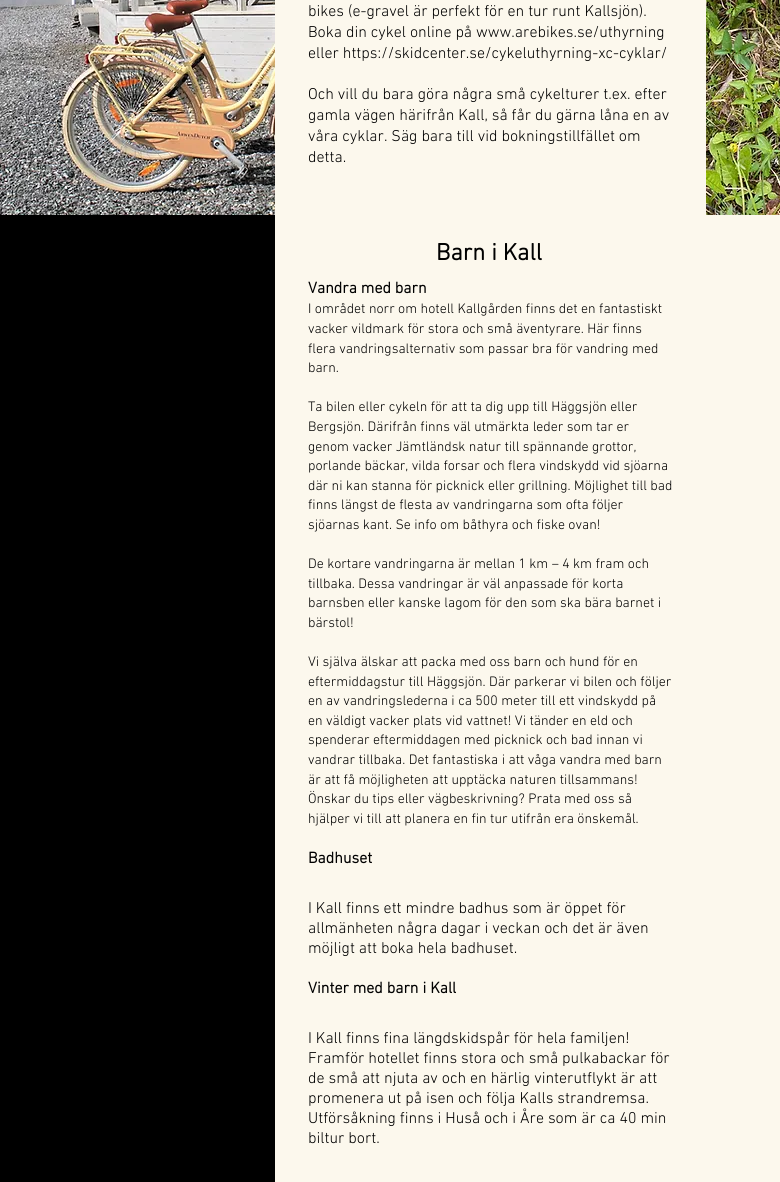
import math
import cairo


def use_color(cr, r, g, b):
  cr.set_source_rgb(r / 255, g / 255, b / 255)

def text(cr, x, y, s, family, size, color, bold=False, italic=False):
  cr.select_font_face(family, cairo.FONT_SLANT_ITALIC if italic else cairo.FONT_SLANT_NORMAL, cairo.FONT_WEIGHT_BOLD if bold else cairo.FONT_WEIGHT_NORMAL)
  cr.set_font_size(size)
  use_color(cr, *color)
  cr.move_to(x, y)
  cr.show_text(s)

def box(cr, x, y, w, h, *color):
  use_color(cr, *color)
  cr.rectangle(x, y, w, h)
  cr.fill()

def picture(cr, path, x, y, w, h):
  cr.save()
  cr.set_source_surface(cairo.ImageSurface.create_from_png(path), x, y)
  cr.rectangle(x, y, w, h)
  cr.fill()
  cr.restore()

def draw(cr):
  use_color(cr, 255, 255, 255)
  cr.paint()
  picture(cr, "img_01.png", 0, 0, 275, 215)
  box(cr, 275, 0, 431, 1182, 252, 248, 237)
  picture(cr, "img_02.png", 706, 0, 74, 215)
  box(cr, 0, 215, 275, 967, 0, 0, 0)
  box(cr, 706, 215, 74, 967, 252, 248, 237)
  text(cr, 308, 16, "bikes (e-gravel är perfekt för en tur runt Kallsjön).", "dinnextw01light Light", 16, (0, 0, 0))
  text(cr, 308, 37, "Boka din cykel online på www.arebikes.se/uthyrning", "dinnextw01light Light", 16, (0, 0, 0))
  text(cr, 308, 58, "eller https://skidcenter.se/cykeluthyrning-xc-cyklar/", "dinnextw01light Light", 16, (0, 0, 0))
  text(cr, 308, 99, "Och vill du bara göra några små cykelturer t.ex. efter", "dinnextw01light Light", 16, (0, 0, 0))
  text(cr, 308, 120, "gamla vägen härifrån Kall, så får du gärna låna en av", "dinnextw01light Light", 16, (0, 0, 0))
  text(cr, 308, 141, "våra cyklar. Säg bara till vid bokningstillfället om", "dinnextw01light Light", 16, (0, 0, 0))
  text(cr, 308, 162, "detta.", "dinnextw01light Light", 16, (0, 0, 0))
  text(cr, 436, 260, "Barn i Kall", "dinnextw01light", 24, (0, 0, 0), bold=True)
  text(cr, 308, 293, "Vandra med barn", "dinnextw01light", 16, (0, 0, 0), bold=True)
  text(cr, 308, 313, "I området norr om hotell Kallgården finns det en fantastiskt", "dinnextw01light Light", 14, (0, 0, 0))
  text(cr, 308, 333, "vacker vildmark för stora och små äventyrare. Här finns", "dinnextw01light Light", 14, (0, 0, 0))
  text(cr, 308, 353, "flera vandringsalternativ som passar bra för vandring med", "dinnextw01light Light", 14, (0, 0, 0))
  text(cr, 308, 372, "barn.", "dinnextw01light Light", 14, (0, 0, 0))
  text(cr, 308, 411, "Ta bilen eller cykeln för att ta dig upp till Häggsjön eller", "dinnextw01light Light", 14, (0, 0, 0))
  text(cr, 308, 431, "Bergsjön. Därifrån finns väl utmärkta leder som tar er", "dinnextw01light Light", 14, (0, 0, 0))
  text(cr, 308, 451, "genom vacker Jämtländsk natur till spännande grottor,", "dinnextw01light Light", 14, (0, 0, 0))
  text(cr, 308, 470, "porlande bäckar, vilda forsar och flera vindskydd vid sjöarna", "dinnextw01light Light", 14, (0, 0, 0))
  text(cr, 308, 490, "där ni kan stanna för picknick eller grillning. Möjlighet till bad", "dinnextw01light Light", 14, (0, 0, 0))
  text(cr, 308, 509, "finns längst de flesta av vandringarna som ofta följer", "dinnextw01light Light", 14, (0, 0, 0))
  text(cr, 308, 529, "sjöarnas kant. Se info om båthyra och fiske ovan!", "dinnextw01light Light", 14, (0, 0, 0))
  text(cr, 308, 568, "De kortare vandringarna är mellan 1 km – 4 km fram och", "dinnextw01light Light", 14, (0, 0, 0))
  text(cr, 308, 588, "tillbaka. Dessa vandringar är väl anpassade för korta", "dinnextw01light Light", 14, (0, 0, 0))
  text(cr, 308, 607, "barnsben eller kanske lagom för den som ska bära barnet i", "dinnextw01light Light", 14, (0, 0, 0))
  text(cr, 308, 627, "bärstol!", "dinnextw01light Light", 14, (0, 0, 0))
  text(cr, 308, 666, "Vi själva älskar att packa med oss barn och hund för en", "dinnextw01light Light", 14, (0, 0, 0))
  text(cr, 308, 686, "eftermiddagstur till Häggsjön. Där parkerar vi bilen och följer", "dinnextw01light Light", 14, (0, 0, 0))
  text(cr, 308, 705, "en av vandringslederna i ca 500 meter till ett vindskydd på", "dinnextw01light Light", 14, (0, 0, 0))
  text(cr, 308, 725, "en väldigt vacker plats vid vattnet! Vi tänder en eld och", "dinnextw01light Light", 14, (0, 0, 0))
  text(cr, 308, 744, "spenderar eftermiddagen med picknick och bad innan vi", "dinnextw01light Light", 14, (0, 0, 0))
  text(cr, 308, 764, "vandrar tillbaka. Det fantastiska i att våga vandra med barn", "dinnextw01light Light", 14, (0, 0, 0))
  text(cr, 308, 784, "är att få möjligheten att upptäcka naturen tillsammans!", "dinnextw01light Light", 14, (0, 0, 0))
  text(cr, 308, 803, "Önskar du tips eller vägbeskrivning? Prata med oss så", "dinnextw01light Light", 14, (0, 0, 0))
  text(cr, 308, 823, "hjälper vi till att planera en fin tur utifrån era önskemål.", "dinnextw01light Light", 14, (0, 0, 0))
  text(cr, 308, 863, "Badhuset", "dinnextw01light", 16, (0, 0, 0), bold=True)
  text(cr, 308, 913, "I Kall finns ett mindre badhus som är öppet för", "dinnextw01light Light", 16, (0, 0, 0))
  text(cr, 308, 933, "allmänheten några dagar i veckan och det är även", "dinnextw01light Light", 16, (0, 0, 0))
  text(cr, 308, 953, "möjligt att boka hela badhuset.", "dinnextw01light Light", 16, (0, 0, 0))
  text(cr, 308, 993, "Vinter med barn i Kall", "dinnextw01light", 16, (0, 0, 0), bold=True)
  text(cr, 308, 1043, "I Kall finns fina längdskidspår för hela familjen!", "dinnextw01light Light", 16, (0, 0, 0))
  text(cr, 308, 1063, "Framför hotellet finns stora och små pulkabackar för", "dinnextw01light Light", 16, (0, 0, 0))
  text(cr, 308, 1083, "de små att njuta av och en härlig vinterutflykt är att", "dinnextw01light Light", 16, (0, 0, 0))
  text(cr, 308, 1103, "promenera ut på isen och följa Kalls strandremsa.", "dinnextw01light Light", 16, (0, 0, 0))
  text(cr, 308, 1123, "Utförsåkning finns i Huså och i Åre som är ca 40 min", "dinnextw01light Light", 16, (0, 0, 0))
  text(cr, 308, 1143, "biltur bort.", "dinnextw01light Light", 16, (0, 0, 0))


surface = cairo.ImageSurface(cairo.FORMAT_RGB24, 780, 1182)
cr = cairo.Context(surface)
options = cairo.FontOptions()
options.set_hint_metrics(cairo.HINT_METRICS_OFF)
options.set_hint_style(cairo.HINT_STYLE_NONE)
cr.set_font_options(options)
cr.set_miter_limit(4)
draw(cr)
surface.write_to_png("out.png")
